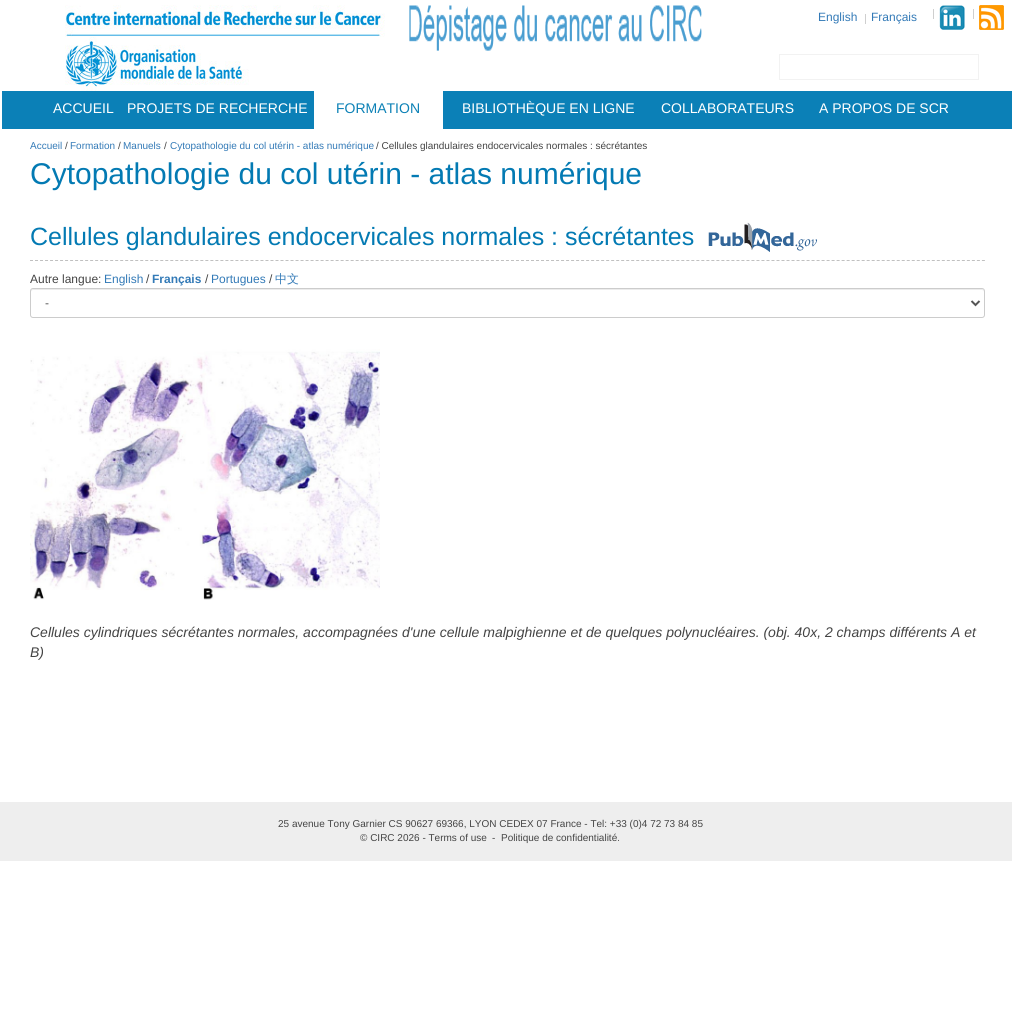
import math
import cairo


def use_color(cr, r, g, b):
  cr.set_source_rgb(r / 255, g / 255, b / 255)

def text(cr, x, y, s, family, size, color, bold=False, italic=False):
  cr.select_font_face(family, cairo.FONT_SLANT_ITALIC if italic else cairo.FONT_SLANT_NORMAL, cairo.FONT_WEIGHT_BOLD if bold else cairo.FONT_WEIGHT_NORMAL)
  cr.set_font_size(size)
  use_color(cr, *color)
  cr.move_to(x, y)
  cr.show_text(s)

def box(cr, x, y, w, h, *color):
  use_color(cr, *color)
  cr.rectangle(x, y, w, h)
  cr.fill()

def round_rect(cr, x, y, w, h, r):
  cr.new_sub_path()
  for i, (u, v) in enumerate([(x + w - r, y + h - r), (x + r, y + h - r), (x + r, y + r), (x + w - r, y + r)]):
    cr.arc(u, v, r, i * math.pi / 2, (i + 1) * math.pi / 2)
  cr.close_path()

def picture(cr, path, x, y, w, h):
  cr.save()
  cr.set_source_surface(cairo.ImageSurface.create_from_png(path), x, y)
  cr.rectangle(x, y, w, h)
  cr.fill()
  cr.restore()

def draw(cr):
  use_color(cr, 255, 255, 255)
  cr.paint()
  picture(cr, "img_01.png", 65, 5, 320, 86)
  picture(cr, "img_02.png", 409, 5, 293, 46)
  box(cr, 865, 14, 1, 10, 207, 207, 207)
  box(cr, 933, 9, 1, 10, 207, 207, 207)
  picture(cr, "img_03.png", 939, 5, 26, 25)
  box(cr, 973, 9, 1, 10, 207, 207, 207)
  picture(cr, "img_04.png", 979, 5, 25, 25)
  cr.rectangle(779.5, 54.5, 199, 25)
  use_color(cr, 242, 242, 242)
  cr.set_line_width(1)
  cr.stroke()
  box(cr, 2, 91, 1010, 38, 11, 128, 183)
  box(cr, 314, 91, 129, 38, 255, 255, 255)
  cr.new_path()
  cr.move_to(30, 260.5)
  cr.line_to(985, 260.5)
  use_color(cr, 192, 192, 192)
  cr.set_dash([3, 2.01])
  cr.stroke()
  picture(cr, "img_05.png", 708, 222, 109, 30)
  use_color(cr, 236, 236, 236)
  cr.new_path()
  cr.move_to(33, 290)
  cr.line_to(982, 290)
  cr.curve_to(983, 290, 984, 291, 984, 292)
  cr.line_to(984, 291)
  cr.curve_to(984, 290, 983, 289, 982, 289)
  cr.line_to(33, 289)
  cr.line_to(31, 290)
  cr.line_to(31, 292)
  cr.curve_to(31, 291, 32, 290, 33, 290)
  cr.close_path()
  cr.fill()
  round_rect(cr, 30.5, 288.5, 954, 29, 2.5)
  use_color(cr, 204, 204, 204)
  cr.set_dash([])
  cr.stroke()
  cr.new_path()
  cr.move_to(971.5, 301)
  cr.line_to(975.5, 305)
  cr.line_to(979.5, 301)
  use_color(cr, 85, 85, 85)
  cr.set_line_width(2)
  cr.stroke()
  picture(cr, "img_06.png", 30, 349, 350, 251)
  box(cr, 0, 802, 1012, 59, 238, 238, 238)
  text(cr, 818, 21, "English", "Liberation Sans", 12, (51, 122, 183))
  text(cr, 871, 21, "Français", "Liberation Sans", 12, (51, 122, 183))
  text(cr, 53, 113, "ACCUEIL", "Liberation Sans", 14, (255, 255, 255))
  text(cr, 127, 113, "PROJETS DE RECHERCHE", "Liberation Sans", 14, (255, 255, 255))
  text(cr, 336, 113, "FORMATION", "Liberation Sans", 14, (12, 129, 182))
  text(cr, 462, 113, "BIBLIOTHÈQUE EN LIGNE", "Liberation Sans", 14, (255, 255, 255))
  text(cr, 661, 113, "COLLABORATEURS", "Liberation Sans", 14, (255, 255, 255))
  text(cr, 819, 113, "A PROPOS DE SCR", "Liberation Sans", 14, (255, 255, 255))
  text(cr, 30, 149, "Accueil", "Liberation Sans", 10, (51, 122, 183))
  text(cr, 65, 149, "/", "Liberation Sans", 10, (68, 68, 68))
  text(cr, 70, 149, "Formation", "Liberation Sans", 10, (51, 122, 183))
  text(cr, 118, 149, "/", "Liberation Sans", 10, (68, 68, 68))
  text(cr, 123, 149, "Manuels", "Liberation Sans", 10, (51, 122, 183))
  text(cr, 164, 149, "/", "Liberation Sans", 10, (68, 68, 68))
  text(cr, 170, 149, "Cytopathologie du col utérin - atlas numérique", "Liberation Sans", 10, (51, 122, 183))
  text(cr, 376, 149, "/ Cellules glandulaires endocervicales normales : sécrétantes", "Liberation Sans", 10, (68, 68, 68))
  text(cr, 30, 184, "Cytopathologie du col utérin - atlas numérique", "Liberation Sans", 30, (3, 122, 179))
  text(cr, 30, 245, "Cellules glandulaires endocervicales normales : sécrétantes", "Liberation Sans", 25, (3, 122, 179))
  text(cr, 30, 283, "Autre langue:", "Liberation Sans", 12, (68, 68, 68))
  text(cr, 104, 283, "English", "Liberation Sans", 12, (51, 122, 183))
  text(cr, 146, 283, "/", "Liberation Sans", 12, (68, 68, 68))
  text(cr, 152, 283, "Français", "Liberation Sans", 12, (51, 122, 183), bold=True)
  text(cr, 205, 283, "/", "Liberation Sans", 12, (68, 68, 68))
  text(cr, 211, 283, "Portugues", "Liberation Sans", 12, (51, 122, 183))
  text(cr, 269, 283, "/", "Liberation Sans", 12, (68, 68, 68))
  text(cr, 275, 283, "中文", "WenQuanYi Zen Hei Medium", 12, (51, 122, 183))
  text(cr, 45, 307, "-", "Liberation Sans", 12, (85, 85, 85))
  text(cr, 30, 637, "Cellules cylindriques sécrétantes normales, accompagnées d'une cellule malpighienne et de quelques polynucléaires. (obj. 40x, 2 champs différents A et", "Liberation Sans", 14, (68, 68, 68), italic=True)
  text(cr, 30, 657, "B)", "Liberation Sans", 14, (68, 68, 68), italic=True)
  text(cr, 278, 827, "25 avenue Tony Garnier CS 90627 69366, LYON CEDEX 07 France - Tel: +33 (0)4 72 73 84 85", "Liberation Sans", 10, (68, 68, 68))
  text(cr, 360, 841, "© CIRC 2026 - Terms of use", "Liberation Sans", 10, (68, 68, 68))
  text(cr, 492, 841, "-", "Liberation Sans", 10, (68, 68, 68))
  text(cr, 501, 841, "Politique de confidentialité.", "Liberation Sans", 10, (68, 68, 68))


surface = cairo.ImageSurface(cairo.FORMAT_RGB24, 1014, 1020)
cr = cairo.Context(surface)
options = cairo.FontOptions()
options.set_hint_metrics(cairo.HINT_METRICS_OFF)
options.set_hint_style(cairo.HINT_STYLE_NONE)
cr.set_font_options(options)
cr.set_miter_limit(4)
draw(cr)
surface.write_to_png("out.png")
